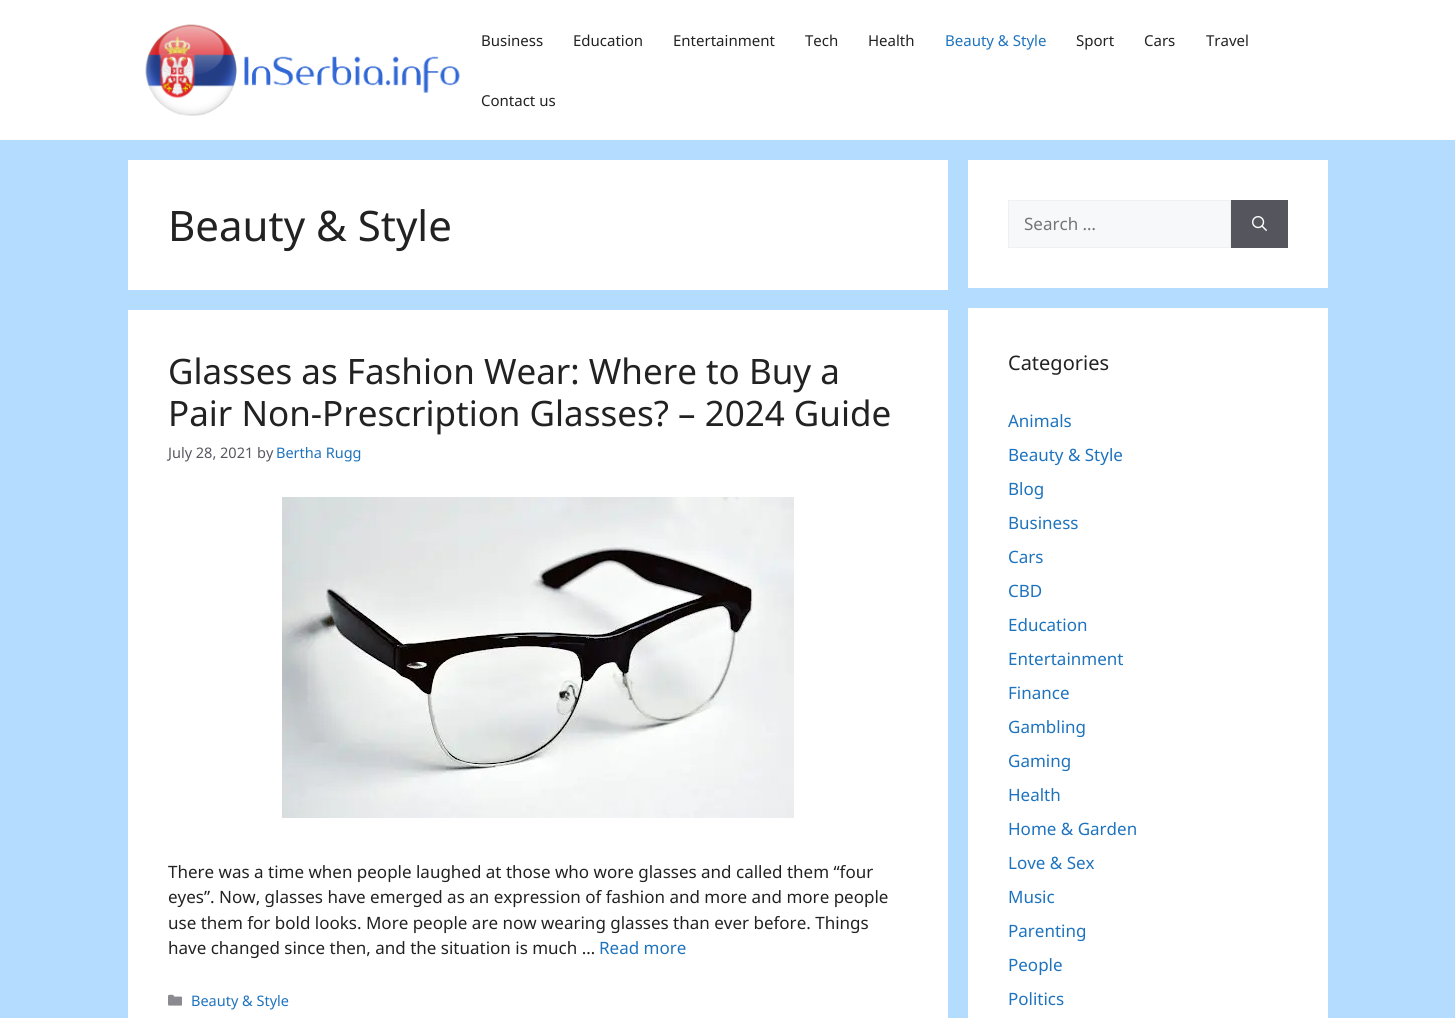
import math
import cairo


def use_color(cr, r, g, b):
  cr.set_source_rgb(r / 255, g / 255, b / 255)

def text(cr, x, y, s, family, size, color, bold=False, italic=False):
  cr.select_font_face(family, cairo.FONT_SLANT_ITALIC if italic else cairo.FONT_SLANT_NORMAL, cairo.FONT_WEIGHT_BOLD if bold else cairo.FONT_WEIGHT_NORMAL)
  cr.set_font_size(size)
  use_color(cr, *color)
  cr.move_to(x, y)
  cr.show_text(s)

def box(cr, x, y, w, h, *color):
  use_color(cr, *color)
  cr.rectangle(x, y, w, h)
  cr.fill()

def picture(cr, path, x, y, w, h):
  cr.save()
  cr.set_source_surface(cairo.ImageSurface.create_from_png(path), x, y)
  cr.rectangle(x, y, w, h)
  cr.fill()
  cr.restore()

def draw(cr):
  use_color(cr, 179, 220, 255)
  cr.paint()
  box(cr, 0, 0, 1455, 140, 255, 255, 255)
  picture(cr, "img_01.png", 145, 24, 315, 92)
  box(cr, 128, 160, 820, 130, 255, 255, 255)
  box(cr, 128, 310, 820, 708, 255, 255, 255)
  picture(cr, "img_02.png", 282, 497, 512, 321)
  picture(cr, "img_03.png", 168, 994, 14, 12)
  box(cr, 968, 160, 360, 128, 255, 255, 255)
  use_color(cr, 247, 248, 249)
  cr.rectangle(1008.5, 200.5, 222, 47)
  cr.fill_preserve()
  use_color(cr, 240, 240, 240)
  cr.set_line_width(1)
  cr.stroke()
  box(cr, 1231, 200, 57, 48, 85, 85, 94)
  picture(cr, "img_04.png", 1252, 216, 15, 15)
  box(cr, 968, 308, 360, 710, 255, 255, 255)
  text(cr, 481, 46, "Business", "Noto Sans", 15, (34, 34, 34))
  text(cr, 573, 46, "Education", "Noto Sans", 15, (34, 34, 34))
  text(cr, 673, 46, "Entertainment", "Noto Sans", 15, (34, 34, 34))
  text(cr, 805, 46, "Tech", "Noto Sans", 15, (34, 34, 34))
  text(cr, 868, 46, "Health", "Noto Sans", 15, (34, 34, 34))
  text(cr, 945, 46, "Beauty & Style", "Noto Sans", 15, (30, 115, 190))
  text(cr, 1076, 46, "Sport", "Noto Sans", 15, (34, 34, 34))
  text(cr, 1144, 46, "Cars", "Noto Sans", 15, (34, 34, 34))
  text(cr, 1206, 46, "Travel", "Noto Sans", 15, (34, 34, 34))
  text(cr, 481, 106, "Contact us", "Noto Sans", 15, (34, 34, 34))
  text(cr, 168, 241, "Beauty & Style", "Noto Sans", 42, (34, 34, 34))
  text(cr, 168, 384, "Glasses as Fashion Wear: Where to Buy a", "Noto Sans", 35, (34, 34, 34))
  text(cr, 168, 426, "Pair Non-Prescription Glasses? – 2024 Guide", "Noto Sans", 35, (34, 34, 34))
  text(cr, 168, 458, "July 28, 2021 by", "Noto Sans", 14.5, (87, 87, 96))
  text(cr, 276, 458, "Bertha Rugg", "Noto Sans", 14.5, (30, 115, 190))
  text(cr, 168, 878, "There was a time when people laughed at those who wore glasses and called them “four", "Noto Sans", 17, (34, 34, 34))
  text(cr, 168, 903, "eyes”. Now, glasses have emerged as an expression of fashion and more and more people", "Noto Sans", 17, (34, 34, 34))
  text(cr, 168, 929, "use them for bold looks. More people are now wearing glasses than ever before. Things", "Noto Sans", 17, (34, 34, 34))
  text(cr, 168, 954, "have changed since then, and the situation is much …", "Noto Sans", 17, (34, 34, 34))
  text(cr, 599, 954, "Read more", "Noto Sans", 17, (30, 115, 190))
  text(cr, 191, 1006, "Beauty & Style", "Noto Sans", 14.5, (30, 115, 190))
  text(cr, 1024, 230, "Search …", "Noto Sans", 17, (117, 117, 117))
  text(cr, 1008, 370, "Categories", "Noto Sans", 20, (34, 34, 34))
  text(cr, 1008, 427, "Animals", "Noto Sans", 17, (30, 115, 190))
  text(cr, 1008, 461, "Beauty & Style", "Noto Sans", 17, (30, 115, 190))
  text(cr, 1008, 495, "Blog", "Noto Sans", 17, (30, 115, 190))
  text(cr, 1008, 529, "Business", "Noto Sans", 17, (30, 115, 190))
  text(cr, 1008, 563, "Cars", "Noto Sans", 17, (30, 115, 190))
  text(cr, 1008, 597, "CBD", "Noto Sans", 17, (30, 115, 190))
  text(cr, 1008, 631, "Education", "Noto Sans", 17, (30, 115, 190))
  text(cr, 1008, 665, "Entertainment", "Noto Sans", 17, (30, 115, 190))
  text(cr, 1008, 699, "Finance", "Noto Sans", 17, (30, 115, 190))
  text(cr, 1008, 733, "Gambling", "Noto Sans", 17, (30, 115, 190))
  text(cr, 1008, 767, "Gaming", "Noto Sans", 17, (30, 115, 190))
  text(cr, 1008, 801, "Health", "Noto Sans", 17, (30, 115, 190))
  text(cr, 1008, 835, "Home & Garden", "Noto Sans", 17, (30, 115, 190))
  text(cr, 1008, 869, "Love & Sex", "Noto Sans", 17, (30, 115, 190))
  text(cr, 1008, 903, "Music", "Noto Sans", 17, (30, 115, 190))
  text(cr, 1008, 937, "Parenting", "Noto Sans", 17, (30, 115, 190))
  text(cr, 1008, 971, "People", "Noto Sans", 17, (30, 115, 190))
  text(cr, 1008, 1005, "Politics", "Noto Sans", 17, (30, 115, 190))


surface = cairo.ImageSurface(cairo.FORMAT_RGB24, 1455, 1018)
cr = cairo.Context(surface)
options = cairo.FontOptions()
options.set_hint_metrics(cairo.HINT_METRICS_OFF)
options.set_hint_style(cairo.HINT_STYLE_NONE)
cr.set_font_options(options)
cr.set_miter_limit(4)
draw(cr)
surface.write_to_png("out.png")
